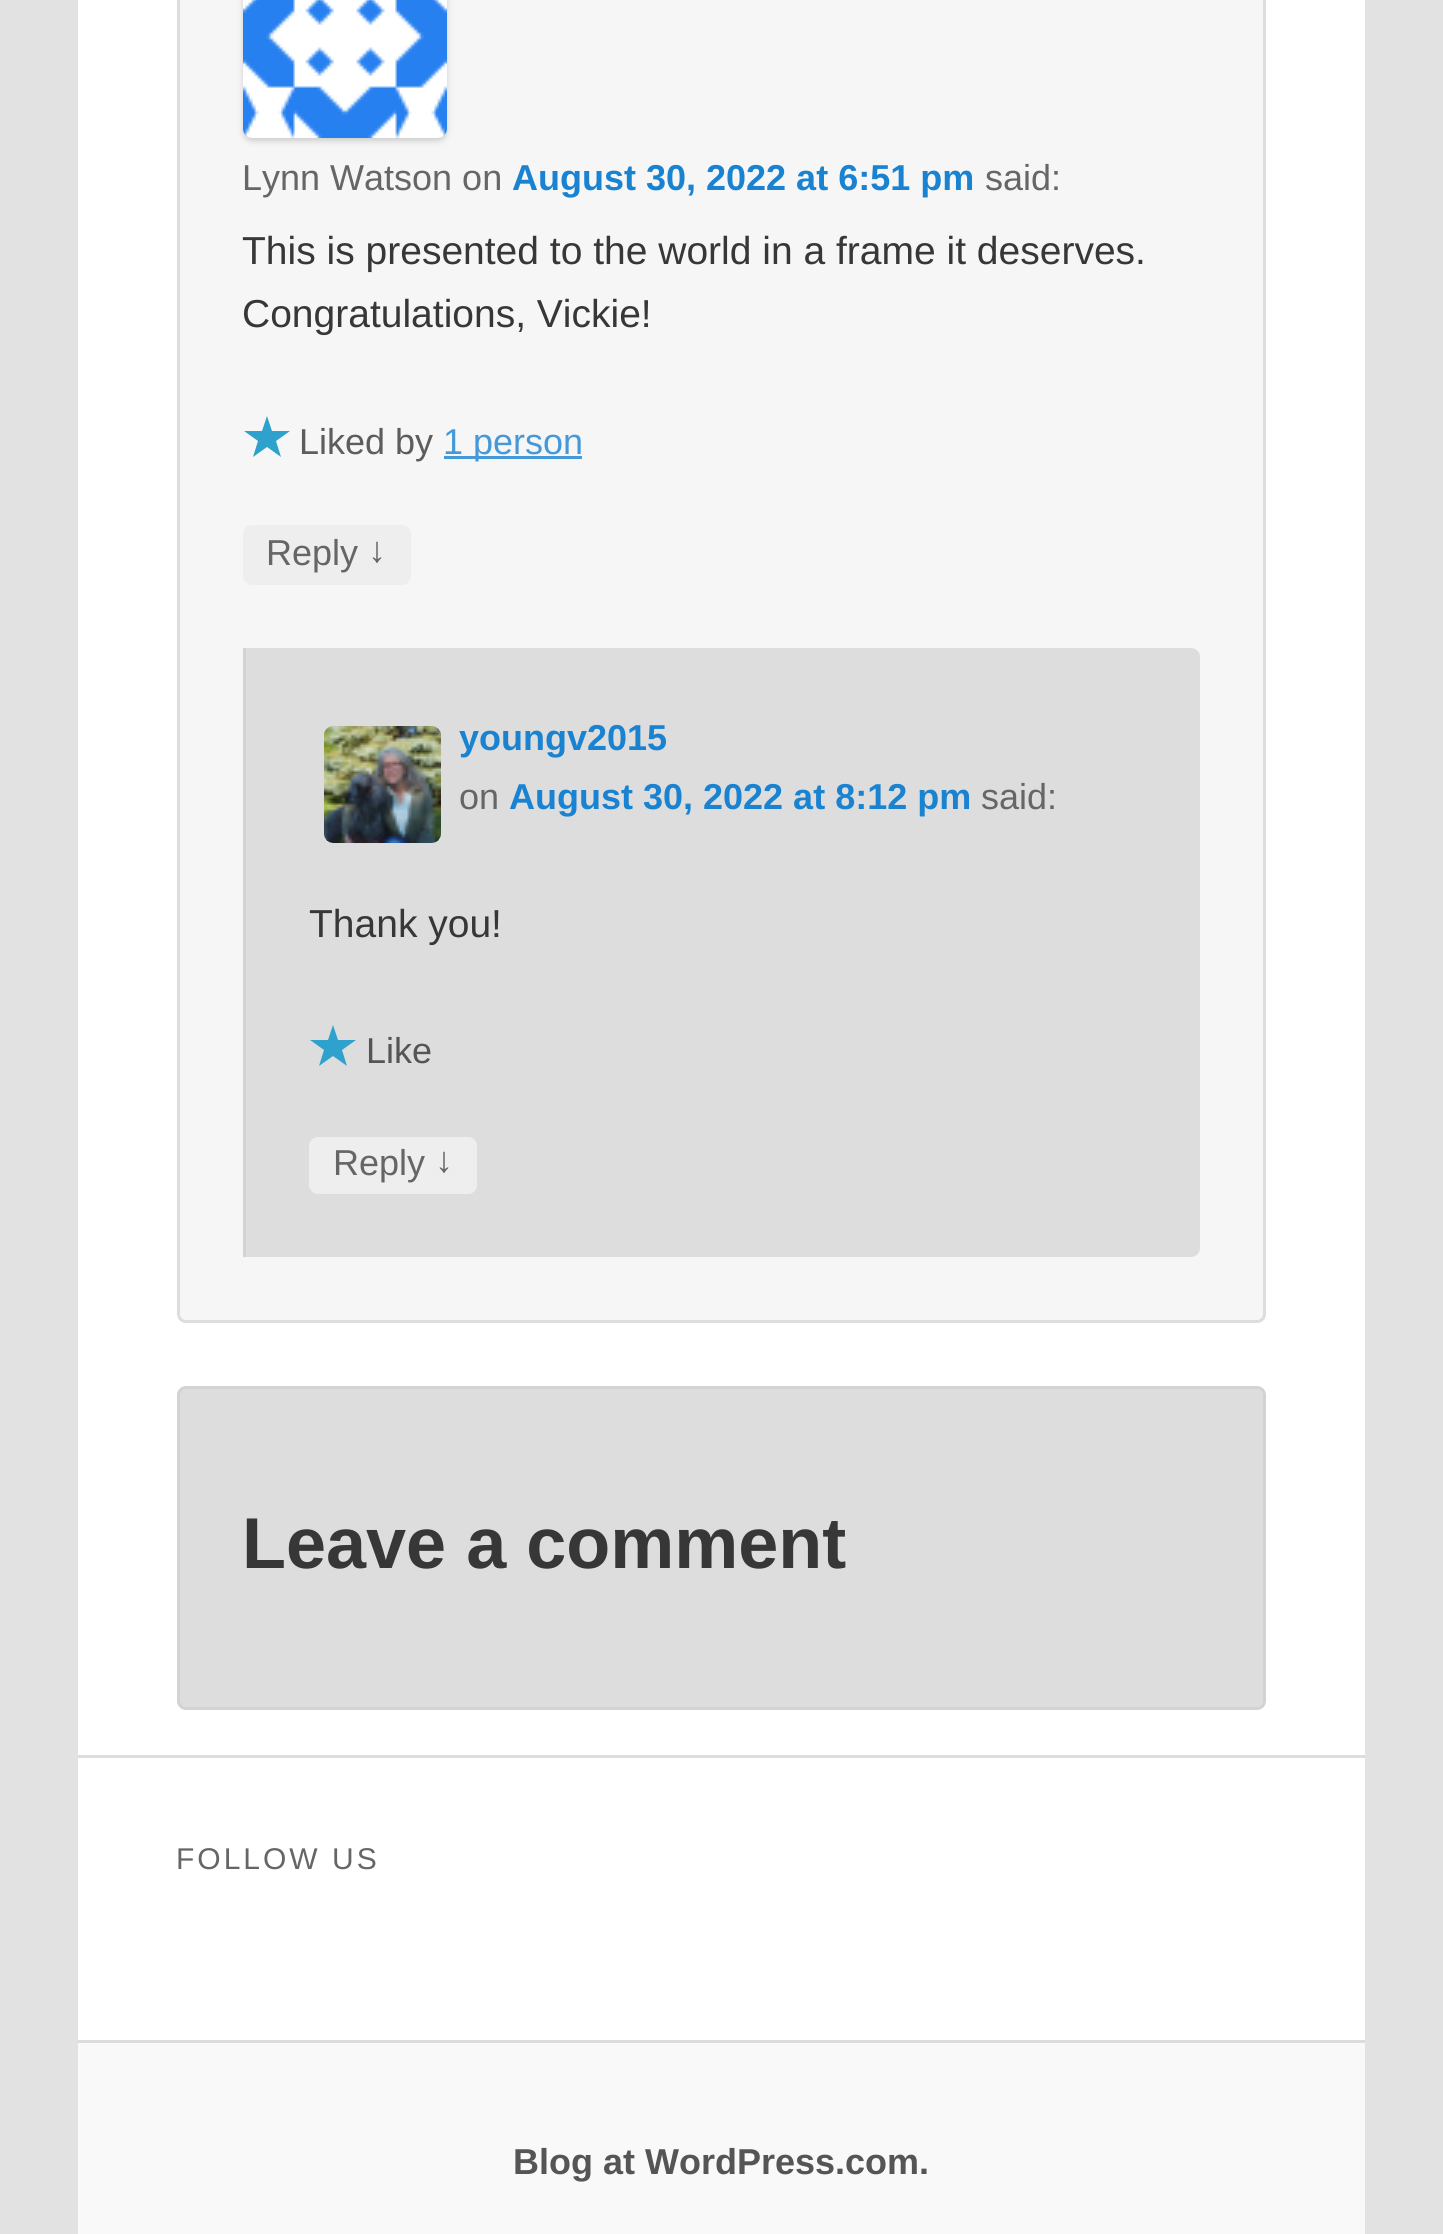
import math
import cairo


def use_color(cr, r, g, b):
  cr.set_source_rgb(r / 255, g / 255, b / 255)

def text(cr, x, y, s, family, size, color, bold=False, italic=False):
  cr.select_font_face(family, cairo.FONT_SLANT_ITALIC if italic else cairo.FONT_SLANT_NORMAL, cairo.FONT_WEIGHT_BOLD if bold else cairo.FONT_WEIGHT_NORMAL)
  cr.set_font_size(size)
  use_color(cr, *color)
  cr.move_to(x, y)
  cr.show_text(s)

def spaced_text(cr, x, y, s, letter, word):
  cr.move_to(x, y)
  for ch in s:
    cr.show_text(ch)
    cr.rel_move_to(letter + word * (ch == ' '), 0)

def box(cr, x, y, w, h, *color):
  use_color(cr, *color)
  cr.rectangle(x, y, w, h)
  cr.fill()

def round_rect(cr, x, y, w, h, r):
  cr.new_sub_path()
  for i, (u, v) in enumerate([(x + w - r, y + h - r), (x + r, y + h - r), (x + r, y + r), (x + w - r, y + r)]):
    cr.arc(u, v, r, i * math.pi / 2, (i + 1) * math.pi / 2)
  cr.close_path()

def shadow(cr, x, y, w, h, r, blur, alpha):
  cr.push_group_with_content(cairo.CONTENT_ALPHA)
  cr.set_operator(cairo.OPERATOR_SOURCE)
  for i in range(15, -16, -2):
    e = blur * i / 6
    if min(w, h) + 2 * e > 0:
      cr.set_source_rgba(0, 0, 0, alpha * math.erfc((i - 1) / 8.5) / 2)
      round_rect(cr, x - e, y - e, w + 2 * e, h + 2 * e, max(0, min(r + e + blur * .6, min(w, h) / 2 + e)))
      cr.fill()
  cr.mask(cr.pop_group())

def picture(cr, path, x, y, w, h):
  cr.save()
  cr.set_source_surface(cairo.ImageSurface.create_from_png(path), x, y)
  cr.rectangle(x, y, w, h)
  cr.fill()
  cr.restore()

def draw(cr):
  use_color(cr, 226, 226, 226)
  cr.paint()
  box(cr, 78, 0, 1287, 2040, 255, 255, 255)
  use_color(cr, 246, 246, 246)
  round_rect(cr, 178.5, -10.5, 1086, 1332, 7.5)
  cr.fill_preserve()
  use_color(cr, 221, 221, 221)
  cr.set_line_width(3)
  cr.stroke()
  use_color(cr, 204, 204, 204)
  shadow(cr, 243, -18, 204, 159, 9, 3, 1)
  picture(cr, "img_01.png", 243, 0, 204, 138)
  use_color(cr, 46, 162, 204)
  cr.new_path()
  cr.move_to(290, 431)
  cr.line_to(276, 441)
  cr.line_to(281, 457)
  cr.line_to(267, 447)
  cr.line_to(253, 457)
  cr.line_to(258, 441)
  cr.line_to(244, 431)
  cr.line_to(262, 431)
  cr.line_to(267, 416)
  cr.line_to(272, 431)
  cr.close_path()
  cr.fill()
  box(cr, 444, 456, 138, 3, 69, 153, 216)
  use_color(cr, 238, 238, 238)
  round_rect(cr, 243, 525, 168, 60, 9)
  cr.fill()
  use_color(cr, 221, 221, 221)
  cr.new_path()
  cr.move_to(243, 648)
  cr.line_to(1191, 648)
  cr.curve_to(1196, 648, 1200, 652, 1200, 657)
  cr.line_to(1200, 1248)
  cr.curve_to(1200, 1253, 1196, 1257, 1191, 1257)
  cr.line_to(243, 1257)
  cr.close_path()
  cr.fill()
  box(cr, 243, 648, 3, 609, 211, 211, 211)
  picture(cr, "img_02.png", 324, 726, 117, 117)
  use_color(cr, 46, 162, 204)
  cr.new_path()
  cr.move_to(356, 1040)
  cr.line_to(342, 1050)
  cr.line_to(347, 1066)
  cr.line_to(333, 1056)
  cr.line_to(319, 1066)
  cr.line_to(324, 1050)
  cr.line_to(310, 1040)
  cr.line_to(328, 1040)
  cr.line_to(333, 1025)
  cr.line_to(338, 1040)
  cr.close_path()
  cr.fill()
  use_color(cr, 238, 238, 238)
  round_rect(cr, 309, 1137, 168, 57, 9)
  cr.fill()
  use_color(cr, 221, 221, 221)
  round_rect(cr, 178.5, 1387.5, 1086, 321, 7.5)
  cr.fill_preserve()
  use_color(cr, 211, 211, 211)
  cr.stroke()
  box(cr, 78, 1755, 1287, 3, 221, 221, 221)
  box(cr, 78, 2043, 1287, 191, 249, 249, 249)
  box(cr, 78, 2040, 1287, 3, 221, 221, 221)
  text(cr, 242, 190, "Lynn Watson on", "Liberation Sans", 36, (102, 102, 102))
  text(cr, 512, 190, "August 30, 2022 at 6:51 pm", "Liberation Sans", 36, (25, 130, 209), bold=True)
  text(cr, 985, 190, "said:", "Liberation Sans", 36, (102, 102, 102))
  text(cr, 242, 264, "This is presented to the world in a frame it deserves.", "Liberation Sans", 39, (55, 55, 55))
  text(cr, 242, 327, "Congratulations, Vickie!", "Liberation Sans", 39, (55, 55, 55))
  text(cr, 299, 454, "Liked by", "Liberation Sans", 36, (93, 93, 93))
  text(cr, 443, 454, "1 person", "Liberation Sans", 36, (69, 153, 216))
  text(cr, 266, 565, "Reply", "Liberation Sans", 36, (102, 102, 102))
  text(cr, 368, 562, "↓", "Liberation Sans", 36, (102, 102, 102))
  text(cr, 459, 750, "youngv2015", "Liberation Sans", 36, (25, 130, 209), bold=True)
  text(cr, 981, 809, "said:", "Liberation Sans", 36, (102, 102, 102))
  text(cr, 459, 809, "on", "Liberation Sans", 36, (102, 102, 102))
  text(cr, 509, 809, "August 30, 2022 at 8:12 pm", "Liberation Sans", 36, (25, 130, 209), bold=True)
  text(cr, 309, 937, "Thank you!", "Liberation Sans", 39, (55, 55, 55))
  text(cr, 366, 1063, "Like", "Liberation Sans", 36, (85, 85, 85))
  text(cr, 333, 1175, "Reply", "Liberation Sans", 36, (102, 102, 102))
  text(cr, 435, 1172, "↓", "Liberation Sans", 36, (102, 102, 102))
  text(cr, 242, 1568, "Leave a comment", "Liberation Sans", 72, (55, 55, 55), bold=True)
  cr.select_font_face("Liberation Sans")
  cr.set_font_size(30)
  use_color(cr, 102, 102, 102)
  spaced_text(cr, 176, 1869, "FOLLOW US", 3, 0)
  text(cr, 513, 2174, "Blog at WordPress.com.", "Liberation Sans", 36, (85, 85, 85), bold=True)


surface = cairo.ImageSurface(cairo.FORMAT_RGB24, 1443, 2234)
cr = cairo.Context(surface)
options = cairo.FontOptions()
options.set_hint_metrics(cairo.HINT_METRICS_OFF)
options.set_hint_style(cairo.HINT_STYLE_NONE)
cr.set_font_options(options)
cr.set_miter_limit(4)
draw(cr)
surface.write_to_png("out.png")
